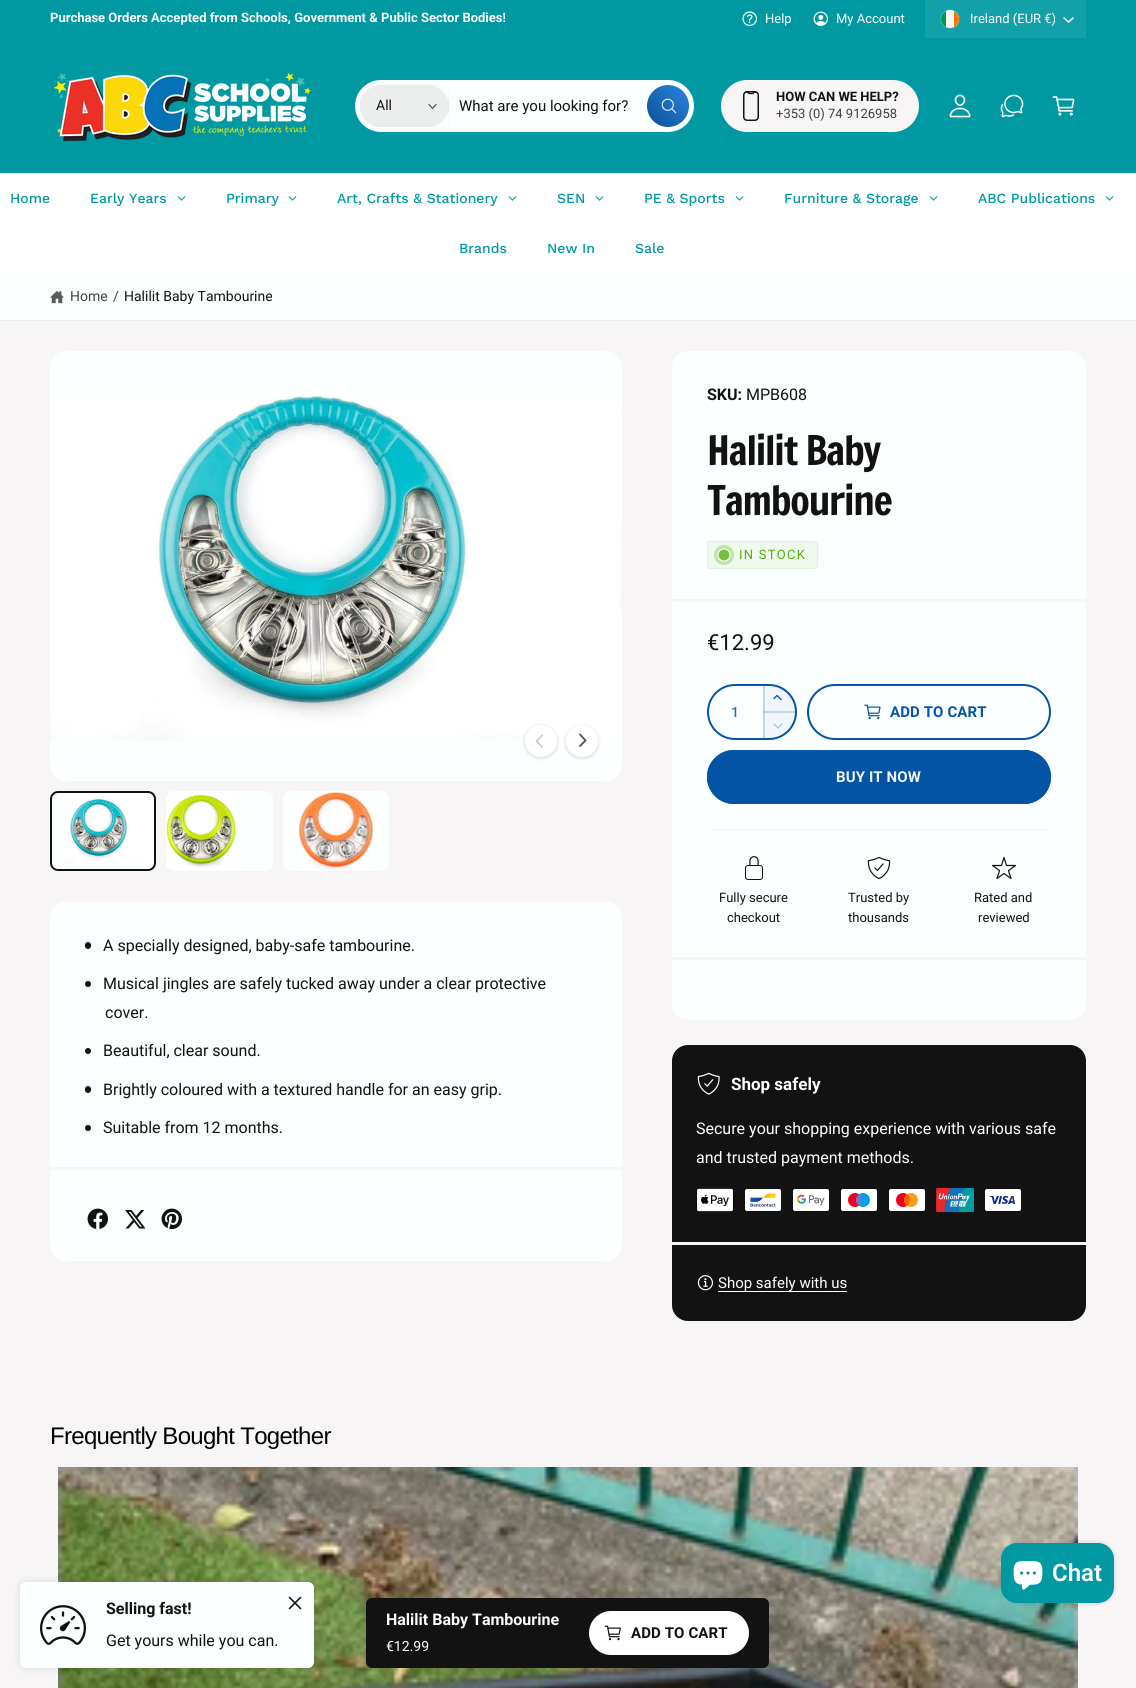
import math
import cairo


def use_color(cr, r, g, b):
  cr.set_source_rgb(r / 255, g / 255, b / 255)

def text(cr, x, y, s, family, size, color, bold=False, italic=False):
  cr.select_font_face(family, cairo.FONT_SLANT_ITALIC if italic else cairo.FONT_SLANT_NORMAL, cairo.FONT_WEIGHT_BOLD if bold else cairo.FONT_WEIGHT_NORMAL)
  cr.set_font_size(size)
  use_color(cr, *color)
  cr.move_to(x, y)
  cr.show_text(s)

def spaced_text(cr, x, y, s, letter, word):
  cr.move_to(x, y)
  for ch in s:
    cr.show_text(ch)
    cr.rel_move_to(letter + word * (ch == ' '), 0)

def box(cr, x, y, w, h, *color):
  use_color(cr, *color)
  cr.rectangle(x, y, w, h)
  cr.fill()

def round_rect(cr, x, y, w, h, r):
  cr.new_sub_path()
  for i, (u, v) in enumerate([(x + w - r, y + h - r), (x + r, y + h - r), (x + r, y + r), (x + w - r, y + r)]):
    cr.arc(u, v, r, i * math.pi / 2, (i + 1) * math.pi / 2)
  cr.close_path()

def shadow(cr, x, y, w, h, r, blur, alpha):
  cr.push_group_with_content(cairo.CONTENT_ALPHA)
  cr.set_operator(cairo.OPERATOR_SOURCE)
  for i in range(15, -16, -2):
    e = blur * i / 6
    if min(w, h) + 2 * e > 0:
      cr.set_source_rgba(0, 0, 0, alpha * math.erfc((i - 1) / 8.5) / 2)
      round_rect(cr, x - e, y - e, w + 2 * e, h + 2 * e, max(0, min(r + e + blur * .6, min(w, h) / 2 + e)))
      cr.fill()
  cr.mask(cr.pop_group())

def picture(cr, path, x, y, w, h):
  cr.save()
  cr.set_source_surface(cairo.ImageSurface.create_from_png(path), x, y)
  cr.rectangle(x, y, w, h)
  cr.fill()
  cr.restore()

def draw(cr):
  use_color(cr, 247, 245, 245)
  cr.paint()
  box(cr, 0, 0, 1136, 173, 0, 153, 162)
  picture(cr, "img_01.png", 742, 11, 16, 16)
  picture(cr, "img_02.png", 813, 11, 15, 15)
  box(cr, 925, 0, 161, 38, 18, 160, 169)
  cr.arc(950, 19, 9.5, 0, 2 * math.pi)
  use_color(cr, 42, 170, 178)
  cr.set_line_width(1)
  cr.stroke()
  use_color(cr, 255, 255, 255)
  cr.arc(950, 19, 9, 0, 2 * math.pi)
  cr.fill()
  cr.save()
  round_rect(cr, 941, 10, 18, 18, 9)
  cr.clip()
  box(cr, 941, 10, 5, 18, 0, 154, 73)
  box(cr, 954, 10, 5, 18, 255, 121, 0)
  cr.restore()
  cr.new_path()
  cr.move_to(1064, 18)
  cr.line_to(1068.5, 22)
  cr.line_to(1073, 18)
  cr.set_line_width(1.5)
  cr.set_line_cap(cairo.LINE_CAP_ROUND)
  cr.set_line_join(cairo.LINE_JOIN_ROUND)
  cr.stroke()
  picture(cr, "img_03.png", 54, 73, 259, 70)
  use_color(cr, 252, 255, 255)
  round_rect(cr, 355, 80, 339, 52, 26)
  cr.fill()
  use_color(cr, 236, 238, 238)
  round_rect(cr, 360, 85, 89, 42, 21)
  cr.fill()
  cr.rectangle(360.5, 85.5, 88, 41)
  cr.set_source_rgba(0.071, 0.071, 0.071, 0.03)
  cr.set_line_width(1)
  cr.set_line_cap(cairo.LINE_CAP_BUTT)
  cr.set_line_join(cairo.LINE_JOIN_MITER)
  cr.stroke()
  cr.new_path()
  cr.move_to(429, 104.5)
  cr.line_to(432.5, 108.5)
  cr.line_to(436, 104.5)
  use_color(cr, 83, 84, 84)
  cr.set_line_width(1.2)
  cr.set_line_cap(cairo.LINE_CAP_ROUND)
  cr.set_line_join(cairo.LINE_JOIN_ROUND)
  cr.stroke()
  gradient = cairo.LinearGradient(647, 127, 689, 85)
  gradient.add_color_stop_rgba(0.12, 0.059, 0.333, 0.616, 1)
  gradient.add_color_stop_rgba(0.86, 0.153, 0.494, 0.839, 1)
  cr.set_source(gradient)
  cr.arc(668, 106, 21, 0, 2 * math.pi)
  cr.fill()
  picture(cr, "img_04.png", 661, 98, 16, 16)
  use_color(cr, 247, 245, 245)
  round_rect(cr, 721, 80, 198, 52, 26)
  cr.fill()
  round_rect(cr, 743.75, 91.75, 14.5, 28.5, 3.25)
  use_color(cr, 18, 18, 18)
  cr.set_line_width(1.5)
  cr.set_line_cap(cairo.LINE_CAP_BUTT)
  cr.set_line_join(cairo.LINE_JOIN_MITER)
  cr.stroke()
  cr.new_path()
  cr.move_to(746.5, 92)
  cr.curve_to(749.5, 92, 747, 93.5, 750, 93.5)
  cr.line_to(753, 93.5)
  cr.line_to(754, 92)
  cr.line_to(755.5, 92)
  cr.set_line_width(1.4)
  cr.set_line_cap(cairo.LINE_CAP_ROUND)
  cr.set_line_join(cairo.LINE_JOIN_ROUND)
  cr.stroke()
  picture(cr, "img_05.png", 949, 94, 22, 24)
  picture(cr, "img_06.png", 1000, 94, 24, 24)
  picture(cr, "img_07.png", 1052, 96, 23, 20)
  box(cr, 0, 173, 1136, 100, 255, 255, 255)
  picture(cr, "img_08.png", 177, 196, 9, 5)
  picture(cr, "img_08.png", 288, 196, 9, 5)
  picture(cr, "img_08.png", 508, 196, 9, 5)
  picture(cr, "img_08.png", 595, 196, 9, 5)
  picture(cr, "img_08.png", 735, 196, 9, 5)
  picture(cr, "img_08.png", 929, 196, 9, 5)
  picture(cr, "img_08.png", 1105, 196, 9, 5)
  box(cr, 0, 273, 1136, 47, 252, 255, 255)
  box(cr, 0, 320, 1136, 1, 233, 236, 236)
  picture(cr, "img_09.png", 50, 291, 14, 13)
  use_color(cr, 252, 255, 255)
  round_rect(cr, 50, 351, 572, 430, 16)
  cr.fill()
  picture(cr, "img_10.png", 50, 394, 572, 347)
  use_color(cr, 60, 64, 67)
  shadow(cr, 524, 725, 34, 34, 17, 1.5, 0.15)
  use_color(cr, 255, 255, 255)
  cr.arc(541, 741, 16, 0, 2 * math.pi)
  cr.fill()
  cr.new_path()
  cr.move_to(542, 735.5)
  cr.line_to(536.5, 741)
  cr.line_to(542, 747)
  use_color(cr, 204, 205, 206)
  cr.set_line_width(1.9)
  cr.stroke()
  use_color(cr, 60, 64, 67)
  shadow(cr, 565, 725, 34, 34, 17, 1.5, 0.15)
  use_color(cr, 255, 255, 255)
  cr.arc(582, 741, 16, 0, 2 * math.pi)
  cr.fill()
  cr.new_path()
  cr.move_to(580, 746)
  cr.line_to(585.5, 740.5)
  cr.line_to(580, 734.5)
  use_color(cr, 86, 88, 91)
  cr.stroke()
  use_color(cr, 252, 255, 255)
  round_rect(cr, 50, 791, 106, 80, 8)
  cr.fill()
  picture(cr, "img_11.png", 65, 798, 91, 65)
  round_rect(cr, 51, 792, 104, 78, 7)
  use_color(cr, 18, 18, 18)
  cr.set_line_width(2)
  cr.set_line_cap(cairo.LINE_CAP_BUTT)
  cr.set_line_join(cairo.LINE_JOIN_MITER)
  cr.stroke()
  use_color(cr, 252, 255, 255)
  round_rect(cr, 166, 791, 107, 80, 8)
  cr.fill()
  picture(cr, "img_12.png", 166, 794, 70, 74)
  round_rect(cr, 283, 791, 106, 80, 8)
  cr.fill()
  picture(cr, "img_13.png", 298, 791, 76, 80)
  round_rect(cr, 672, 351, 414, 669, 16)
  cr.fill()
  use_color(cr, 240, 249, 238)
  round_rect(cr, 707, 541, 111, 28, 3)
  cr.fill()
  round_rect(cr, 707.5, 541.5, 110, 27, 2.5)
  cr.set_source_rgba(0.333, 0.686, 0.063, 0.1)
  cr.set_line_width(1)
  cr.stroke()
  use_color(cr, 194, 227, 171)
  cr.arc(724, 555, 10, 0, 2 * math.pi)
  cr.fill()
  use_color(cr, 118, 191, 63)
  cr.arc(724, 555, 6, 0, 2 * math.pi)
  cr.fill_preserve()
  use_color(cr, 255, 255, 255)
  cr.stroke()
  box(cr, 672, 599, 414, 3, 247, 245, 245)
  use_color(cr, 240, 246, 251)
  cr.new_path()
  cr.move_to(763, 684)
  cr.line_to(769, 684)
  cr.curve_to(783.5, 684, 795, 695.5, 795, 710)
  cr.line_to(795, 713)
  cr.line_to(763, 713)
  cr.close_path()
  cr.fill()
  box(cr, 763, 684, 2, 29, 193, 214, 234)
  box(cr, 763, 711, 32, 2, 193, 214, 234)
  box(cr, 763, 711, 2, 2, 155, 188, 220)
  cr.save()
  cr.new_path()
  cr.move_to(784.5, 704)
  cr.curve_to(777, 704, 770.5, 698, 770.5, 690)
  cr.line_to(784.5, 690)
  cr.close_path()
  cr.clip()
  cr.new_path()
  cr.move_to(781, 699.5)
  cr.line_to(777, 695.5)
  cr.line_to(773, 699.5)
  use_color(cr, 4, 84, 165)
  cr.set_line_width(1.3)
  cr.set_line_cap(cairo.LINE_CAP_ROUND)
  cr.set_line_join(cairo.LINE_JOIN_ROUND)
  cr.stroke()
  cr.restore()
  use_color(cr, 240, 246, 251)
  cr.new_path()
  cr.move_to(763, 713)
  cr.line_to(795, 713)
  cr.line_to(795, 714)
  cr.curve_to(795, 728.5, 783.5, 740, 769, 740)
  cr.line_to(763, 740)
  cr.close_path()
  cr.fill()
  box(cr, 763, 713, 2, 27, 193, 214, 234)
  cr.new_path()
  cr.move_to(774, 724)
  cr.line_to(778, 728)
  cr.line_to(782, 724)
  use_color(cr, 169, 197, 225)
  cr.set_line_width(1.3)
  cr.set_line_cap(cairo.LINE_CAP_ROUND)
  cr.set_line_join(cairo.LINE_JOIN_ROUND)
  cr.stroke()
  round_rect(cr, 708, 685, 88, 54, 27)
  use_color(cr, 252, 255, 255)
  cr.set_line_width(2)
  cr.set_line_cap(cairo.LINE_CAP_BUTT)
  cr.set_line_join(cairo.LINE_JOIN_MITER)
  cr.stroke()
  round_rect(cr, 708, 685, 88, 54, 27)
  use_color(cr, 4, 84, 165)
  cr.stroke()
  picture(cr, "img_14.png", 864, 704, 17, 16)
  round_rect(cr, 808, 685, 242, 54, 27)
  cr.stroke()
  round_rect(cr, 707, 750, 344, 54, 27)
  cr.fill()
  round_rect(cr, 708, 751, 342, 52, 26)
  cr.stroke()
  box(cr, 707, 829, 344, 1, 247, 245, 245)
  picture(cr, "img_15.png", 745, 856, 18, 24)
  picture(cr, "img_16.png", 867, 856, 24, 24)
  cr.new_path()
  cr.move_to(1015.5, 865.5)
  cr.line_to(1006.5, 865.5)
  cr.line_to(1004, 857.5)
  cr.line_to(1001.5, 865.5)
  cr.line_to(992.5, 865.5)
  cr.line_to(999.5, 870.5)
  cr.line_to(997, 878.5)
  cr.line_to(1004, 873.5)
  cr.line_to(1011, 878.5)
  cr.line_to(1008.5, 870.5)
  cr.close_path()
  use_color(cr, 18, 18, 18)
  cr.set_line_width(1.2)
  cr.set_line_join(cairo.LINE_JOIN_ROUND)
  cr.stroke()
  box(cr, 672, 957, 414, 3, 247, 245, 245)
  use_color(cr, 18, 18, 18)
  round_rect(cr, 672, 1045, 414, 276, 16)
  cr.fill()
  picture(cr, "img_17.png", 697, 1072, 23, 23)
  picture(cr, "img_18.png", 696, 1188, 38, 24)
  picture(cr, "img_19.png", 745, 1189, 36, 22)
  picture(cr, "img_20.png", 793, 1189, 36, 22)
  picture(cr, "img_21.png", 841, 1189, 36, 22)
  picture(cr, "img_22.png", 889, 1189, 36, 22)
  picture(cr, "img_23.png", 936, 1188, 38, 24)
  picture(cr, "img_24.png", 985, 1189, 36, 22)
  box(cr, 672, 1242, 414, 3, 247, 245, 245)
  picture(cr, "img_25.png", 697, 1275, 17, 16)
  box(cr, 718, 1291, 129, 1, 255, 255, 255)
  use_color(cr, 252, 255, 255)
  round_rect(cr, 50, 902, 572, 359, 16)
  cr.fill()
  use_color(cr, 18, 18, 18)
  round_rect(cr, 85, 942, 6, 7, 3)
  cr.fill()
  cr.arc(88, 984, 3, 0, 2 * math.pi)
  cr.fill()
  cr.arc(88, 1051, 3, 0, 2 * math.pi)
  cr.fill()
  round_rect(cr, 85, 1086, 6, 7, 3)
  cr.fill()
  cr.arc(88, 1128, 3, 0, 2 * math.pi)
  cr.fill()
  box(cr, 50, 1167, 572, 3, 247, 245, 245)
  picture(cr, "img_26.png", 87, 1208, 21, 21)
  picture(cr, "img_27.png", 125, 1210, 21, 19)
  picture(cr, "img_28.png", 161, 1208, 21, 22)
  picture(cr, "img_30.png", 58, 1467, 1020, 221)
  use_color(cr, 18, 18, 18)
  round_rect(cr, 366, 1598, 403, 70, 6)
  cr.fill()
  use_color(cr, 255, 255, 255)
  round_rect(cr, 589, 1611, 160, 44, 22)
  cr.fill()
  picture(cr, "img_29.png", 604, 1625, 17, 16)
  use_color(cr, 18, 18, 18)
  shadow(cr, 19, 1581, 296, 88, 7, 3, 0.1)
  use_color(cr, 252, 255, 255)
  round_rect(cr, 20, 1582, 294, 86, 6)
  cr.fill()
  picture(cr, "img_31.png", 40, 1605, 46, 40)
  cr.new_path()
  cr.move_to(300.5, 1608.5)
  cr.line_to(289.5, 1597.5)
  cr.move_to(300.5, 1597.5)
  cr.line_to(289.5, 1608.5)
  use_color(cr, 18, 18, 18)
  cr.set_line_width(1.6)
  cr.set_line_cap(cairo.LINE_CAP_ROUND)
  cr.stroke()
  use_color(cr, 0, 0, 0)
  shadow(cr, 1001, 1543, 113, 60, 16, 2.5, 0.15)
  use_color(cr, 0, 153, 162)
  round_rect(cr, 1001, 1543, 113, 60, 16)
  cr.fill()
  picture(cr, "img_32.png", 1013, 1561, 30, 29)
  text(cr, 50, 22, "Purchase Orders Accepted from Schools, Government & Public Sector Bodies!", "Roboto", 13, (255, 255, 255), bold=True)
  text(cr, 765, 23, "Help", "Roboto", 13, (255, 255, 255))
  text(cr, 836, 23, "My Account", "Roboto", 13, (255, 255, 255))
  text(cr, 970, 23, "Ireland (EUR €)", "Roboto", 13, (255, 255, 255))
  text(cr, 376, 110, "All", "Roboto", 14, (18, 18, 18))
  text(cr, 459, 111, "What are you looking for?", "Roboto", 15, (18, 18, 18))
  text(cr, 776, 101, "HOW CAN WE HELP?", "Roboto", 13, (18, 18, 18), bold=True)
  text(cr, 776, 118, "+353 (0) 74 9126958", "Roboto", 13, (65, 65, 65))
  text(cr, 10, 203, "Home", "Work Sans Medium", 14, (0, 153, 162))
  text(cr, 90, 203, "Early Years", "Work Sans Medium", 14, (0, 153, 162))
  text(cr, 226, 203, "Primary", "Work Sans Medium", 14, (0, 153, 162))
  text(cr, 337, 203, "Art, Crafts & Stationery", "Work Sans Medium", 14, (0, 153, 162))
  text(cr, 557, 203, "SEN", "Work Sans Medium", 14, (0, 153, 162))
  text(cr, 644, 203, "PE & Sports", "Work Sans Medium", 14, (0, 153, 162))
  text(cr, 784, 203, "Furniture & Storage", "Work Sans Medium", 14, (0, 153, 162))
  text(cr, 978, 203, "ABC Publications", "Work Sans Medium", 14, (0, 153, 162))
  text(cr, 459, 253, "Brands", "Work Sans Medium", 14, (0, 153, 162))
  text(cr, 547, 253, "New In", "Work Sans Medium", 14, (0, 153, 162))
  text(cr, 635, 253, "Sale", "Work Sans Medium", 14, (0, 153, 162))
  text(cr, 70, 301, "Home", "Roboto", 14, (65, 65, 65))
  text(cr, 113, 301, "/", "Roboto", 14, (65, 65, 65))
  text(cr, 124, 301, "Halilit Baby Tambourine", "Roboto", 14, (18, 18, 18))
  text(cr, 707, 400, "SKU:", "Roboto", 16, (18, 18, 18), bold=True)
  text(cr, 746, 400, "MPB608", "Roboto", 16, (18, 18, 18))
  cr.select_font_face("Francois One")
  cr.set_font_size(40)
  spaced_text(cr, 707, 465, "Halilit Baby", -1.2, 0)
  spaced_text(cr, 707, 515, "Tambourine", -1.2, 0)
  cr.select_font_face("Roboto")
  cr.set_font_size(13)
  use_color(cr, 85, 175, 16)
  spaced_text(cr, 739, 559, "IN STOCK", 1.25, 0)
  text(cr, 707, 650, "€12.99", "Roboto", 22, (18, 18, 18))
  text(cr, 731, 717, "1", "Roboto Medium", 14, (41, 110, 179))
  cr.select_font_face("Roboto", cairo.FONT_SLANT_NORMAL, cairo.FONT_WEIGHT_BOLD)
  cr.set_font_size(15)
  use_color(cr, 4, 84, 165)
  spaced_text(cr, 890, 717, "ADD TO CART", 0.1, 0)
  use_color(cr, 243, 243, 243)
  spaced_text(cr, 836, 782, "BUY IT NOW", 0.1, 0)
  text(cr, 719, 902, "Fully secure", "Roboto", 13, (18, 18, 18))
  text(cr, 727, 922, "checkout", "Roboto", 13, (18, 18, 18))
  text(cr, 848, 902, "Trusted by", "Roboto", 13, (18, 18, 18))
  text(cr, 848, 922, "thousands", "Roboto", 13, (18, 18, 18))
  text(cr, 974, 902, "Rated and", "Roboto", 13, (18, 18, 18))
  text(cr, 978, 922, "reviewed", "Roboto", 13, (18, 18, 18))
  text(cr, 731, 1090, "Shop safely", "Roboto", 17, (255, 255, 255), bold=True)
  text(cr, 696, 1134, "Secure your shopping experience with various safe", "Roboto", 16, (255, 255, 255))
  text(cr, 696, 1163, "and trusted payment methods.", "Roboto", 16, (255, 255, 255))
  text(cr, 718, 1288, "Shop safely with us", "Roboto", 15, (255, 255, 255))
  text(cr, 103, 951, "A specially designed, baby-safe tambourine.", "Roboto", 16, (18, 18, 18))
  text(cr, 103, 989, "Musical jingles are safely tucked away under a clear protective", "Roboto", 16, (18, 18, 18))
  text(cr, 105, 1018, "cover.", "Roboto", 16, (18, 18, 18))
  text(cr, 103, 1056, "Beautiful, clear sound.", "Roboto", 16, (18, 18, 18))
  text(cr, 103, 1095, "Brightly coloured with a textured handle for an easy grip.", "Roboto", 16, (18, 18, 18))
  text(cr, 103, 1133, "Suitable from 12 months.", "Roboto", 16, (18, 18, 18))
  text(cr, 386, 1625, "Halilit Baby Tambourine", "Roboto", 16, (255, 255, 255), bold=True)
  text(cr, 386, 1651, "€12.99", "Roboto", 14, (255, 255, 255))
  cr.select_font_face("Roboto", cairo.FONT_SLANT_NORMAL, cairo.FONT_WEIGHT_BOLD)
  cr.set_font_size(15)
  use_color(cr, 18, 18, 18)
  spaced_text(cr, 631, 1638, "ADD TO CART", 0.1, 0)
  cr.select_font_face("Liberation Sans")
  cr.set_font_size(24)
  use_color(cr, 0, 0, 0)
  spaced_text(cr, 50, 1444, "Frequently Bought Together", -0.7, 0)
  text(cr, 106, 1614, "Selling fast!", "Roboto", 16, (18, 18, 18), bold=True)
  text(cr, 106, 1646, "Get yours while you can.", "Roboto", 16, (18, 18, 18))
  text(cr, 1052, 1581, "Chat", "Roboto SemiBold", 24, (255, 255, 255))


surface = cairo.ImageSurface(cairo.FORMAT_RGB24, 1136, 1688)
cr = cairo.Context(surface)
options = cairo.FontOptions()
options.set_hint_metrics(cairo.HINT_METRICS_OFF)
options.set_hint_style(cairo.HINT_STYLE_NONE)
cr.set_font_options(options)
cr.set_miter_limit(4)
draw(cr)
surface.write_to_png("out.png")
